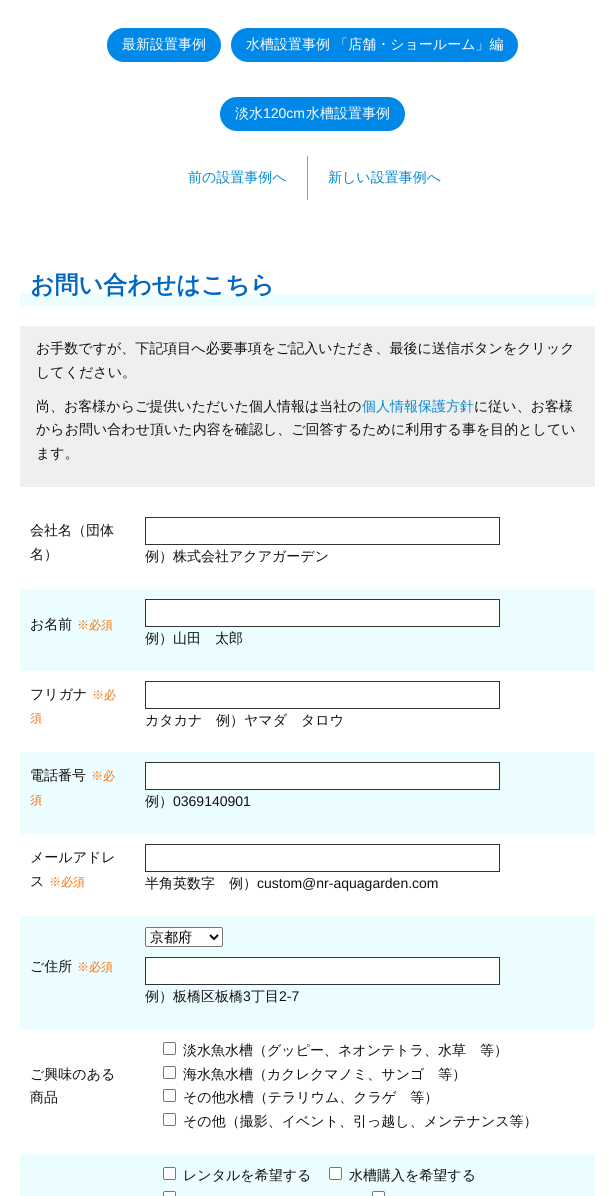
import math
import cairo


def use_color(cr, r, g, b):
  cr.set_source_rgb(r / 255, g / 255, b / 255)

def text(cr, x, y, s, family, size, color, bold=False, italic=False):
  cr.select_font_face(family, cairo.FONT_SLANT_ITALIC if italic else cairo.FONT_SLANT_NORMAL, cairo.FONT_WEIGHT_BOLD if bold else cairo.FONT_WEIGHT_NORMAL)
  cr.set_font_size(size)
  use_color(cr, *color)
  cr.move_to(x, y)
  cr.show_text(s)

def box(cr, x, y, w, h, *color):
  use_color(cr, *color)
  cr.rectangle(x, y, w, h)
  cr.fill()

def round_rect(cr, x, y, w, h, r):
  cr.new_sub_path()
  for i, (u, v) in enumerate([(x + w - r, y + h - r), (x + r, y + h - r), (x + r, y + r), (x + w - r, y + r)]):
    cr.arc(u, v, r, i * math.pi / 2, (i + 1) * math.pi / 2)
  cr.close_path()

def draw(cr):
  use_color(cr, 255, 255, 255)
  cr.paint()
  use_color(cr, 0, 136, 232)
  round_rect(cr, 107, 28, 114, 34, 17)
  cr.fill()
  round_rect(cr, 231, 28, 287, 34, 17)
  cr.fill()
  round_rect(cr, 220, 97, 185, 34, 17)
  cr.fill()
  box(cr, 307, 156, 1, 44, 153, 153, 153)
  box(cr, 20, 294, 575, 12, 236, 253, 255)
  box(cr, 20, 326, 575, 161, 239, 239, 239)
  cr.rectangle(145.5, 517.5, 354, 27)
  use_color(cr, 51, 51, 51)
  cr.set_line_width(1)
  cr.stroke()
  box(cr, 20, 589, 575, 82, 236, 253, 255)
  use_color(cr, 255, 255, 255)
  cr.rectangle(145.5, 599.5, 354, 27)
  cr.fill_preserve()
  use_color(cr, 51, 51, 51)
  cr.stroke()
  cr.rectangle(145.5, 681.5, 354, 27)
  cr.stroke()
  box(cr, 20, 752, 575, 82, 236, 253, 255)
  use_color(cr, 255, 255, 255)
  cr.rectangle(145.5, 762.5, 354, 27)
  cr.fill_preserve()
  use_color(cr, 51, 51, 51)
  cr.stroke()
  cr.rectangle(145.5, 844.5, 354, 27)
  cr.stroke()
  box(cr, 20, 916, 575, 113, 236, 253, 255)
  use_color(cr, 255, 255, 255)
  round_rect(cr, 145.5, 927.5, 77, 19, 1.5)
  cr.fill_preserve()
  use_color(cr, 118, 118, 118)
  cr.stroke()
  cr.new_path()
  cr.move_to(210, 935)
  cr.line_to(214, 939)
  cr.line_to(218, 935)
  use_color(cr, 0, 0, 0)
  cr.set_line_width(2)
  cr.stroke()
  use_color(cr, 255, 255, 255)
  cr.rectangle(145.5, 957.5, 354, 27)
  cr.fill_preserve()
  use_color(cr, 51, 51, 51)
  cr.set_line_width(1)
  cr.stroke()
  round_rect(cr, 163.5, 1042.5, 12, 12, 1.5)
  use_color(cr, 118, 118, 118)
  cr.stroke()
  round_rect(cr, 163.5, 1066.5, 12, 12, 1.5)
  cr.stroke()
  round_rect(cr, 163.5, 1089.5, 12, 12, 1.5)
  cr.stroke()
  round_rect(cr, 163.5, 1113.5, 12, 12, 1.5)
  cr.stroke()
  box(cr, 20, 1154, 575, 42, 236, 253, 255)
  use_color(cr, 255, 255, 255)
  round_rect(cr, 163.5, 1167.5, 12, 12, 1.5)
  cr.fill_preserve()
  use_color(cr, 118, 118, 118)
  cr.stroke()
  use_color(cr, 255, 255, 255)
  round_rect(cr, 329.5, 1167.5, 12, 12, 1.5)
  cr.fill_preserve()
  use_color(cr, 118, 118, 118)
  cr.stroke()
  use_color(cr, 255, 255, 255)
  round_rect(cr, 163.5, 1191.5, 12, 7, 1.5)
  cr.fill_preserve()
  use_color(cr, 118, 118, 118)
  cr.stroke()
  use_color(cr, 255, 255, 255)
  round_rect(cr, 372.5, 1191.5, 12, 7, 1.5)
  cr.fill_preserve()
  use_color(cr, 118, 118, 118)
  cr.stroke()
  text(cr, 122, 49, "最新設置事例", "WenQuanYi Zen Hei Medium", 14, (255, 255, 255))
  text(cr, 246, 49, "水槽設置事例 「店舗・ショールーム」編", "WenQuanYi Zen Hei Medium", 14, (255, 255, 255))
  text(cr, 235, 118, "淡水", "WenQuanYi Zen Hei Medium", 14, (255, 255, 255))
  text(cr, 263, 118, "120cm", "Liberation Sans", 14, (255, 255, 255))
  text(cr, 306, 118, "水槽設置事例", "WenQuanYi Zen Hei Medium", 14, (255, 255, 255))
  text(cr, 188, 182, "前の設置事例へ", "WenQuanYi Zen Hei Medium", 14, (5, 137, 206))
  text(cr, 328, 182, "新しい設置事例へ", "WenQuanYi Zen Hei Medium", 14, (5, 137, 206))
  text(cr, 30, 293, "お問い合わせはこちら", "WenQuanYi Zen Hei", 24, (0, 103, 194), bold=True)
  text(cr, 36, 353, "お手数ですが、下記項目へ必要事項をご記入いただき、最後に送信ボタンをクリック", "WenQuanYi Zen Hei Medium", 14, (17, 17, 17))
  text(cr, 36, 377, "してください。", "WenQuanYi Zen Hei Medium", 14, (17, 17, 17))
  text(cr, 36, 411, "尚、お客様からご提供いただいた個人情報は当社の", "WenQuanYi Zen Hei Medium", 14, (17, 17, 17))
  text(cr, 362, 411, "個人情報保護方針", "WenQuanYi Zen Hei Medium", 14, (5, 137, 206))
  text(cr, 474, 411, "に従い、お客様", "WenQuanYi Zen Hei Medium", 14, (17, 17, 17))
  text(cr, 36, 434, "からお問い合わせ頂いた内容を確認し、ご回答するために利用する事を目的としてい", "WenQuanYi Zen Hei Medium", 14, (17, 17, 17))
  text(cr, 36, 458, "ます。", "WenQuanYi Zen Hei Medium", 14, (17, 17, 17))
  text(cr, 30, 535, "会社名（団体", "WenQuanYi Zen Hei Medium", 14, (17, 17, 17))
  text(cr, 30, 559, "名）", "WenQuanYi Zen Hei Medium", 14, (17, 17, 17))
  text(cr, 145, 561, "例）株式会社アクアガーデン", "WenQuanYi Zen Hei Medium", 14, (17, 17, 17))
  text(cr, 30, 629, "お名前", "WenQuanYi Zen Hei Medium", 14, (17, 17, 17))
  text(cr, 77, 629, "※必須", "WenQuanYi Zen Hei Medium", 12, (255, 108, 0))
  text(cr, 145, 643, "例）山田　太郎", "WenQuanYi Zen Hei Medium", 14, (17, 17, 17))
  text(cr, 30, 699, "フリガナ", "WenQuanYi Zen Hei Medium", 14, (17, 17, 17))
  text(cr, 92, 699, "※必", "WenQuanYi Zen Hei Medium", 12, (255, 108, 0))
  text(cr, 30, 722, "須", "WenQuanYi Zen Hei Medium", 12, (255, 108, 0))
  text(cr, 145, 725, "カタカナ", "WenQuanYi Zen Hei Medium", 14, (17, 17, 17))
  text(cr, 216, 725, "例）ヤマダ　タロウ", "WenQuanYi Zen Hei Medium", 14, (17, 17, 17))
  text(cr, 30, 780, "電話番号", "WenQuanYi Zen Hei Medium", 14, (17, 17, 17))
  text(cr, 91, 780, "※必", "WenQuanYi Zen Hei Medium", 12, (255, 108, 0))
  text(cr, 30, 804, "須", "WenQuanYi Zen Hei Medium", 12, (255, 108, 0))
  text(cr, 145, 806, "例）", "WenQuanYi Zen Hei Medium", 14, (17, 17, 17))
  text(cr, 173, 806, "0369140901", "Liberation Sans", 14, (17, 17, 17))
  text(cr, 30, 862, "メールアドレ", "WenQuanYi Zen Hei Medium", 14, (17, 17, 17))
  text(cr, 30, 886, "ス", "WenQuanYi Zen Hei Medium", 14, (17, 17, 17))
  text(cr, 49, 886, "※必須", "WenQuanYi Zen Hei Medium", 12, (255, 108, 0))
  text(cr, 145, 888, "半角英数字", "WenQuanYi Zen Hei Medium", 14, (17, 17, 17))
  text(cr, 229, 888, "例）", "WenQuanYi Zen Hei Medium", 14, (17, 17, 17))
  text(cr, 257, 888, "custom@nr-aquagarden.com", "Liberation Sans", 14, (17, 17, 17))
  text(cr, 30, 971, "ご住所", "WenQuanYi Zen Hei Medium", 14, (17, 17, 17))
  text(cr, 77, 971, "※必須", "WenQuanYi Zen Hei Medium", 12, (255, 108, 0))
  text(cr, 150, 942, "京都府", "WenQuanYi Zen Hei Medium", 14, (0, 0, 0))
  text(cr, 145, 1001, "例）板橋区板橋", "WenQuanYi Zen Hei Medium", 14, (17, 17, 17))
  text(cr, 243, 1001, "3", "Liberation Sans", 14, (17, 17, 17))
  text(cr, 251, 1001, "丁目", "WenQuanYi Zen Hei Medium", 14, (17, 17, 17))
  text(cr, 279, 1001, "2-7", "Liberation Sans", 14, (17, 17, 17))
  text(cr, 30, 1079, "ご興味のある", "WenQuanYi Zen Hei Medium", 14, (17, 17, 17))
  text(cr, 30, 1102, "商品", "WenQuanYi Zen Hei Medium", 14, (17, 17, 17))
  text(cr, 183, 1055, "淡水魚水槽（グッピー、ネオンテトラ、水草　等）", "WenQuanYi Zen Hei Medium", 14, (17, 17, 17))
  text(cr, 183, 1079, "海水魚水槽（カクレクマノミ、サンゴ　等）", "WenQuanYi Zen Hei Medium", 14, (17, 17, 17))
  text(cr, 183, 1102, "その他水槽（テラリウム、クラゲ　等）", "WenQuanYi Zen Hei Medium", 14, (17, 17, 17))
  text(cr, 183, 1126, "その他（撮影、イベント、引っ越し、メンテナンス等）", "WenQuanYi Zen Hei Medium", 14, (17, 17, 17))
  text(cr, 183, 1180, "レンタルを希望する", "WenQuanYi Zen Hei Medium", 14, (17, 17, 17))
  text(cr, 349, 1180, "水槽購入を希望する", "WenQuanYi Zen Hei Medium", 14, (17, 17, 17))


surface = cairo.ImageSurface(cairo.FORMAT_RGB24, 615, 1196)
cr = cairo.Context(surface)
options = cairo.FontOptions()
options.set_hint_metrics(cairo.HINT_METRICS_OFF)
options.set_hint_style(cairo.HINT_STYLE_NONE)
cr.set_font_options(options)
cr.set_miter_limit(4)
draw(cr)
surface.write_to_png("out.png")
